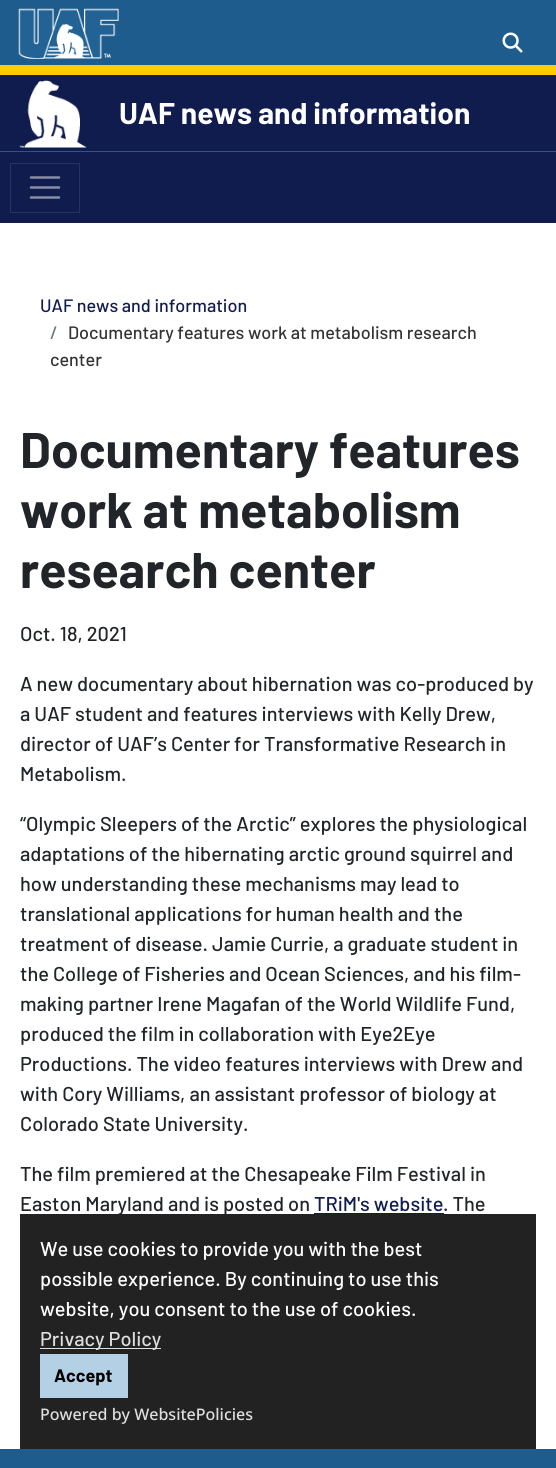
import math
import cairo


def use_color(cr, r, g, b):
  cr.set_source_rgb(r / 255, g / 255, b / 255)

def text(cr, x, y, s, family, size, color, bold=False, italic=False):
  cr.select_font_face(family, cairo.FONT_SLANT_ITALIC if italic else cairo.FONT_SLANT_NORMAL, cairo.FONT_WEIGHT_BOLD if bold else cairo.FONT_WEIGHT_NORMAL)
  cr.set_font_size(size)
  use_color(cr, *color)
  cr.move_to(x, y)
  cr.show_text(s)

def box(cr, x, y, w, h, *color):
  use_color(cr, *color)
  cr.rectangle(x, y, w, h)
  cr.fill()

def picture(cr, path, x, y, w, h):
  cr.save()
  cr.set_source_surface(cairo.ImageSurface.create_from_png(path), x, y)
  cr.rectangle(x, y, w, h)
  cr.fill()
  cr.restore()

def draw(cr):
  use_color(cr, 30, 92, 141)
  cr.paint()
  picture(cr, "img_01.png", 18, 8, 101, 51)
  picture(cr, "img_02.png", 502, 32, 21, 21)
  box(cr, 0, 75, 556, 76, 17, 28, 78)
  box(cr, 0, 65, 556, 10, 255, 205, 0)
  picture(cr, "img_03.png", 19, 80, 68, 68)
  box(cr, 0, 152, 556, 71, 17, 28, 78)
  cr.rectangle(10.5, 163.5, 69, 49)
  use_color(cr, 41, 51, 96)
  cr.set_line_width(1)
  cr.stroke()
  cr.new_path()
  cr.move_to(31, 177.5)
  cr.line_to(59, 177.5)
  cr.move_to(31, 187.5)
  cr.line_to(59, 187.5)
  cr.move_to(31, 197.5)
  cr.line_to(59, 197.5)
  use_color(cr, 136, 142, 167)
  cr.set_line_width(2.5)
  cr.set_line_cap(cairo.LINE_CAP_ROUND)
  cr.stroke()
  box(cr, 0, 223, 556, 1226, 255, 255, 255)
  box(cr, 314, 1213, 130, 1, 17, 28, 78)
  text(cr, 119, 124, "UAF news and information", "Barlow", 30, (255, 255, 255), bold=True)
  text(cr, 40, 312, "UAF news and information", "Barlow Medium", 18, (17, 28, 78))
  text(cr, 50, 339, "/", "Barlow Medium", 18, (108, 117, 125))
  text(cr, 68, 339, "Documentary features work at metabolism research", "Barlow Medium", 18, (51, 51, 51))
  text(cr, 50, 366, "center", "Barlow Medium", 18, (51, 51, 51))
  text(cr, 20, 468, "Documentary features", "Barlow", 50, (33, 37, 41), bold=True)
  text(cr, 20, 528, "work at metabolism", "Barlow", 50, (33, 37, 41), bold=True)
  text(cr, 20, 588, "research center", "Barlow", 50, (33, 37, 41), bold=True)
  text(cr, 20, 641, "Oct. 18, 2021", "Barlow Medium", 20, (33, 37, 41))
  text(cr, 20, 691, "A new documentary about hibernation was co-produced by", "Barlow Medium", 20, (33, 37, 41))
  text(cr, 20, 721, "a UAF student and features interviews with Kelly Drew,", "Barlow Medium", 20, (33, 37, 41))
  text(cr, 20, 751, "director of UAF’s Center for Transformative Research in", "Barlow Medium", 20, (33, 37, 41))
  text(cr, 20, 781, "Metabolism.", "Barlow Medium", 20, (33, 37, 41))
  text(cr, 20, 831, "“Olympic Sleepers of the Arctic” explores the physiological", "Barlow Medium", 20, (33, 37, 41))
  text(cr, 20, 861, "adaptations of the hibernating arctic ground squirrel and", "Barlow Medium", 20, (33, 37, 41))
  text(cr, 20, 891, "how understanding these mechanisms may lead to", "Barlow Medium", 20, (33, 37, 41))
  text(cr, 20, 921, "translational applications for human health and the", "Barlow Medium", 20, (33, 37, 41))
  text(cr, 20, 951, "treatment of disease. Jamie Currie, a graduate student in", "Barlow Medium", 20, (33, 37, 41))
  text(cr, 20, 981, "the College of Fisheries and Ocean Sciences, and his film-", "Barlow Medium", 20, (33, 37, 41))
  text(cr, 20, 1011, "making partner Irene Magafan of the World Wildlife Fund,", "Barlow Medium", 20, (33, 37, 41))
  text(cr, 20, 1041, "produced the film in collaboration with Eye2Eye", "Barlow Medium", 20, (33, 37, 41))
  text(cr, 20, 1071, "Productions. The video features interviews with Drew and", "Barlow Medium", 20, (33, 37, 41))
  text(cr, 20, 1101, "with Cory Williams, an assistant professor of biology at", "Barlow Medium", 20, (33, 37, 41))
  text(cr, 20, 1131, "Colorado State University.", "Barlow Medium", 20, (33, 37, 41))
  text(cr, 20, 1181, "The film premiered at the Chesapeake Film Festival in", "Barlow Medium", 20, (33, 37, 41))
  text(cr, 20, 1211, "Easton Maryland and is posted on", "Barlow Medium", 20, (33, 37, 41))
  text(cr, 314, 1211, "TRiM's website", "Barlow Medium", 20, (17, 28, 78))
  text(cr, 443, 1211, ". The", "Barlow Medium", 20, (33, 37, 41))
  box(cr, 20, 1214, 516, 235, 34, 34, 34)
  text(cr, 40, 1256, "We use cookies to provide you with the best", "Barlow Medium", 20, (255, 255, 255))
  text(cr, 40, 1286, "possible experience. By continuing to use this", "Barlow Medium", 20, (255, 255, 255))
  text(cr, 40, 1316, "website, you consent to the use of cookies.", "Barlow Medium", 20, (255, 255, 255))
  box(cr, 40, 1348, 121, 1, 222, 222, 222)
  text(cr, 40, 1346, "Privacy Policy", "Barlow Medium", 20, (222, 222, 222))
  box(cr, 40, 1354, 88, 44, 179, 208, 228)
  text(cr, 54, 1382, "Accept", "Barlow", 18, (0, 0, 0), bold=True)
  text(cr, 40, 1420, "Powered by WebsitePolicies", "Noto Sans Medium", 16, (222, 222, 222))


surface = cairo.ImageSurface(cairo.FORMAT_RGB24, 556, 1468)
cr = cairo.Context(surface)
options = cairo.FontOptions()
options.set_hint_metrics(cairo.HINT_METRICS_OFF)
options.set_hint_style(cairo.HINT_STYLE_NONE)
cr.set_font_options(options)
cr.set_miter_limit(4)
draw(cr)
surface.write_to_png("out.png")
